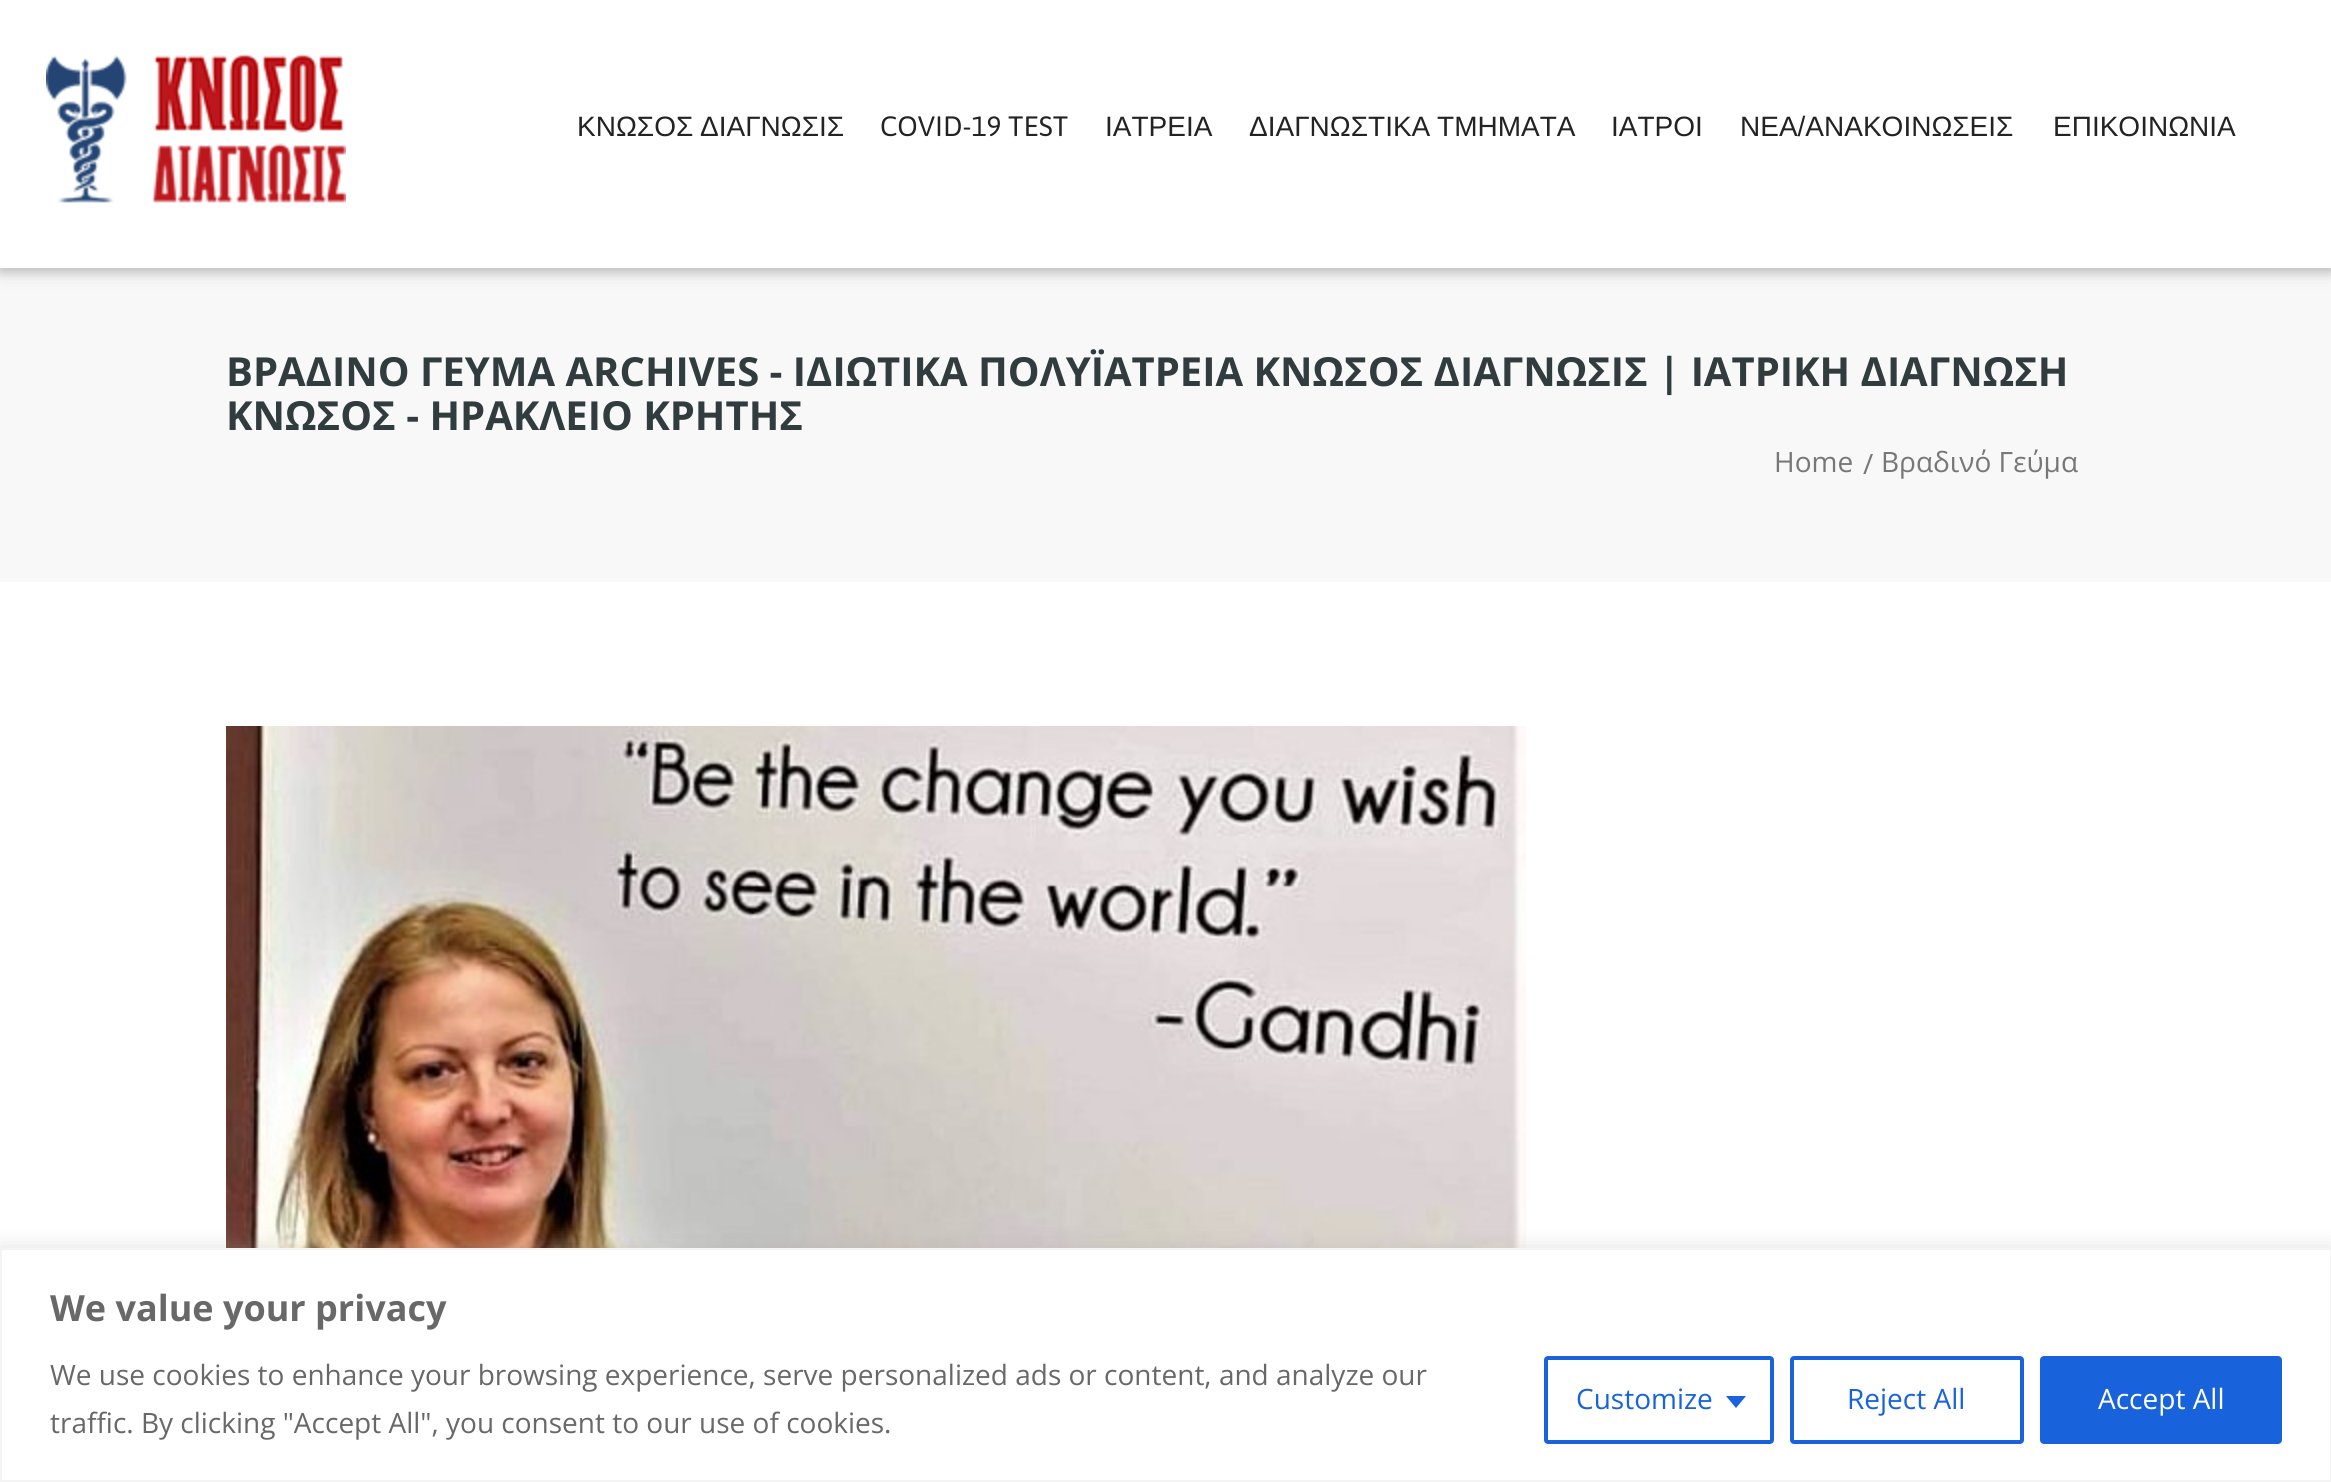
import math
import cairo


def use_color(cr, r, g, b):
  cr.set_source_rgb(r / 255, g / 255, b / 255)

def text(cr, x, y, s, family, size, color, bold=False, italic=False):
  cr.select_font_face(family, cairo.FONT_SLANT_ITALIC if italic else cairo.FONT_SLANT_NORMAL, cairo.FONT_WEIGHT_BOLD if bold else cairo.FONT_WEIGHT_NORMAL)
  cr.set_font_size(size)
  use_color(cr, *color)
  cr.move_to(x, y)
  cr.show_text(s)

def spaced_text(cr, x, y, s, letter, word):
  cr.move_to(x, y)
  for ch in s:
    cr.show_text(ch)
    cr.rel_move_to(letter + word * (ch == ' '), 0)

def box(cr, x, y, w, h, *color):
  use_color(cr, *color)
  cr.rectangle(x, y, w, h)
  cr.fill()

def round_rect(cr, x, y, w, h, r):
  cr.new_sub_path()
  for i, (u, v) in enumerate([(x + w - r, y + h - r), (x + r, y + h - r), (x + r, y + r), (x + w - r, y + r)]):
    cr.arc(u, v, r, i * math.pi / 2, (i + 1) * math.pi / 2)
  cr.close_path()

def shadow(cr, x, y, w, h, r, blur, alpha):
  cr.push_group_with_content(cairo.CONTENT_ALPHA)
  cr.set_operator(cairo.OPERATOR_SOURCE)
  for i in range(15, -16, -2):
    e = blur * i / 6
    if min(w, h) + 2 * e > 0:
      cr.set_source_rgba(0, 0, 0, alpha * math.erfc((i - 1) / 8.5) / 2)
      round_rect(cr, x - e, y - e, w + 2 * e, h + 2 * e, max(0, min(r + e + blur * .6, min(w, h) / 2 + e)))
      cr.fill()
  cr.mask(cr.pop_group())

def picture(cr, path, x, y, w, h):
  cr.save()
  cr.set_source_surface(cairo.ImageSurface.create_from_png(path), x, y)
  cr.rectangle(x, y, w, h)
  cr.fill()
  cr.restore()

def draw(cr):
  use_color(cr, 255, 255, 255)
  cr.paint()
  box(cr, 0, 268, 2331, 314, 248, 248, 248)
  use_color(cr, 0, 0, 0)
  shadow(cr, 0, 4, 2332, 268, 0, 10, 0.12)
  shadow(cr, 0, 4, 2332, 268, 0, 5, 0.16)
  box(cr, 0, 0, 2331, 268, 255, 255, 255)
  picture(cr, "img_01.png", 46, 53, 300, 150)
  picture(cr, "img_02.png", 226, 726, 1300, 522)
  use_color(cr, 172, 171, 171)
  shadow(cr, 0, 1246, 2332, 234, 0, 10, 0.3)
  use_color(cr, 255, 255, 255)
  cr.rectangle(1, 1249, 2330, 232)
  cr.fill_preserve()
  use_color(cr, 244, 244, 244)
  cr.stroke()
  round_rect(cr, 1546, 1358, 226, 84, 2)
  use_color(cr, 24, 99, 220)
  cr.set_line_width(4)
  cr.stroke()
  cr.new_path()
  cr.move_to(1726, 1396)
  cr.line_to(1746, 1396)
  cr.line_to(1736, 1408)
  cr.close_path()
  cr.fill()
  round_rect(cr, 1792, 1358, 230, 84, 2)
  cr.stroke()
  round_rect(cr, 2042, 1358, 238, 84, 2)
  cr.fill_preserve()
  cr.stroke()
  cr.select_font_face("Liberation Sans")
  cr.set_font_size(28)
  use_color(cr, 35, 35, 35)
  spaced_text(cr, 577, 136, "ΚΝΩΣΟΣ ΔΙΑΓΝΩΣΙΣ", 0, -1)
  text(cr, 880, 136, "COVID-19 TEST", "Asap", 28, (35, 35, 35))
  text(cr, 1105, 136, "ΙΑΤΡΕΙΑ", "Liberation Sans", 28, (35, 35, 35))
  spaced_text(cr, 1249, 136, "ΔΙΑΓΝΩΣΤΙΚΑ ΤΜΗΜΑΤΑ", 0, -1)
  text(cr, 1611, 136, "ΙΑΤΡΟΙ", "Liberation Sans", 28, (35, 35, 35))
  text(cr, 1740, 136, "ΝΕΑ/ΑΝΑΚΟΙΝΩΣΕΙΣ", "Liberation Sans", 28, (35, 35, 35))
  text(cr, 2053, 136, "ΕΠΙΚΟΙΝΩΝΙΑ", "Liberation Sans", 28, (35, 35, 35))
  text(cr, 226, 386, "ΒΡΑΔΙΝΟ ΓΕΥΜΑ ARCHIVES - ΙΔΙΩΤΙΚΑ ΠΟΛΥΪΑΤΡΕΙΑ ΚΝΩΣΟΣ ΔΙΑΓΝΩΣΙΣ | ΙΑΤΡΙΚΗ ΔΙΑΓΝΩΣΗ", "Open Sans", 40, (49, 60, 62), bold=True)
  text(cr, 226, 430, "ΚΝΩΣΟΣ - ΗΡΑΚΛΕΙΟ ΚΡΗΤΗΣ", "Open Sans", 40, (49, 60, 62), bold=True)
  text(cr, 1774, 472, "Home", "Open Sans", 28, (119, 119, 119))
  text(cr, 1863, 474, "/", "Open Sans", 28, (119, 119, 119))
  text(cr, 1881, 472, "Βραδινό Γεύμα", "Open Sans", 28, (119, 119, 119))
  text(cr, 50, 1321, "We value your privacy", "Open Sans", 36, (104, 104, 104), bold=True)
  text(cr, 50, 1385, "We use cookies to enhance your browsing experience, serve personalized ads or content, and analyze our", "Open Sans", 28, (104, 104, 104))
  text(cr, 50, 1433, "traffic. By clicking \"Accept All\", you consent to our use of cookies.", "Open Sans", 28, (104, 104, 104))
  text(cr, 1576, 1409, "Customize", "Open Sans", 28, (24, 99, 220))
  text(cr, 1847, 1409, "Reject All", "Open Sans", 28, (24, 99, 220))
  text(cr, 2098, 1409, "Accept All", "Open Sans", 28, (255, 255, 255))


surface = cairo.ImageSurface(cairo.FORMAT_RGB24, 2331, 1482)
cr = cairo.Context(surface)
options = cairo.FontOptions()
options.set_hint_metrics(cairo.HINT_METRICS_OFF)
options.set_hint_style(cairo.HINT_STYLE_NONE)
cr.set_font_options(options)
cr.set_miter_limit(4)
draw(cr)
surface.write_to_png("out.png")
